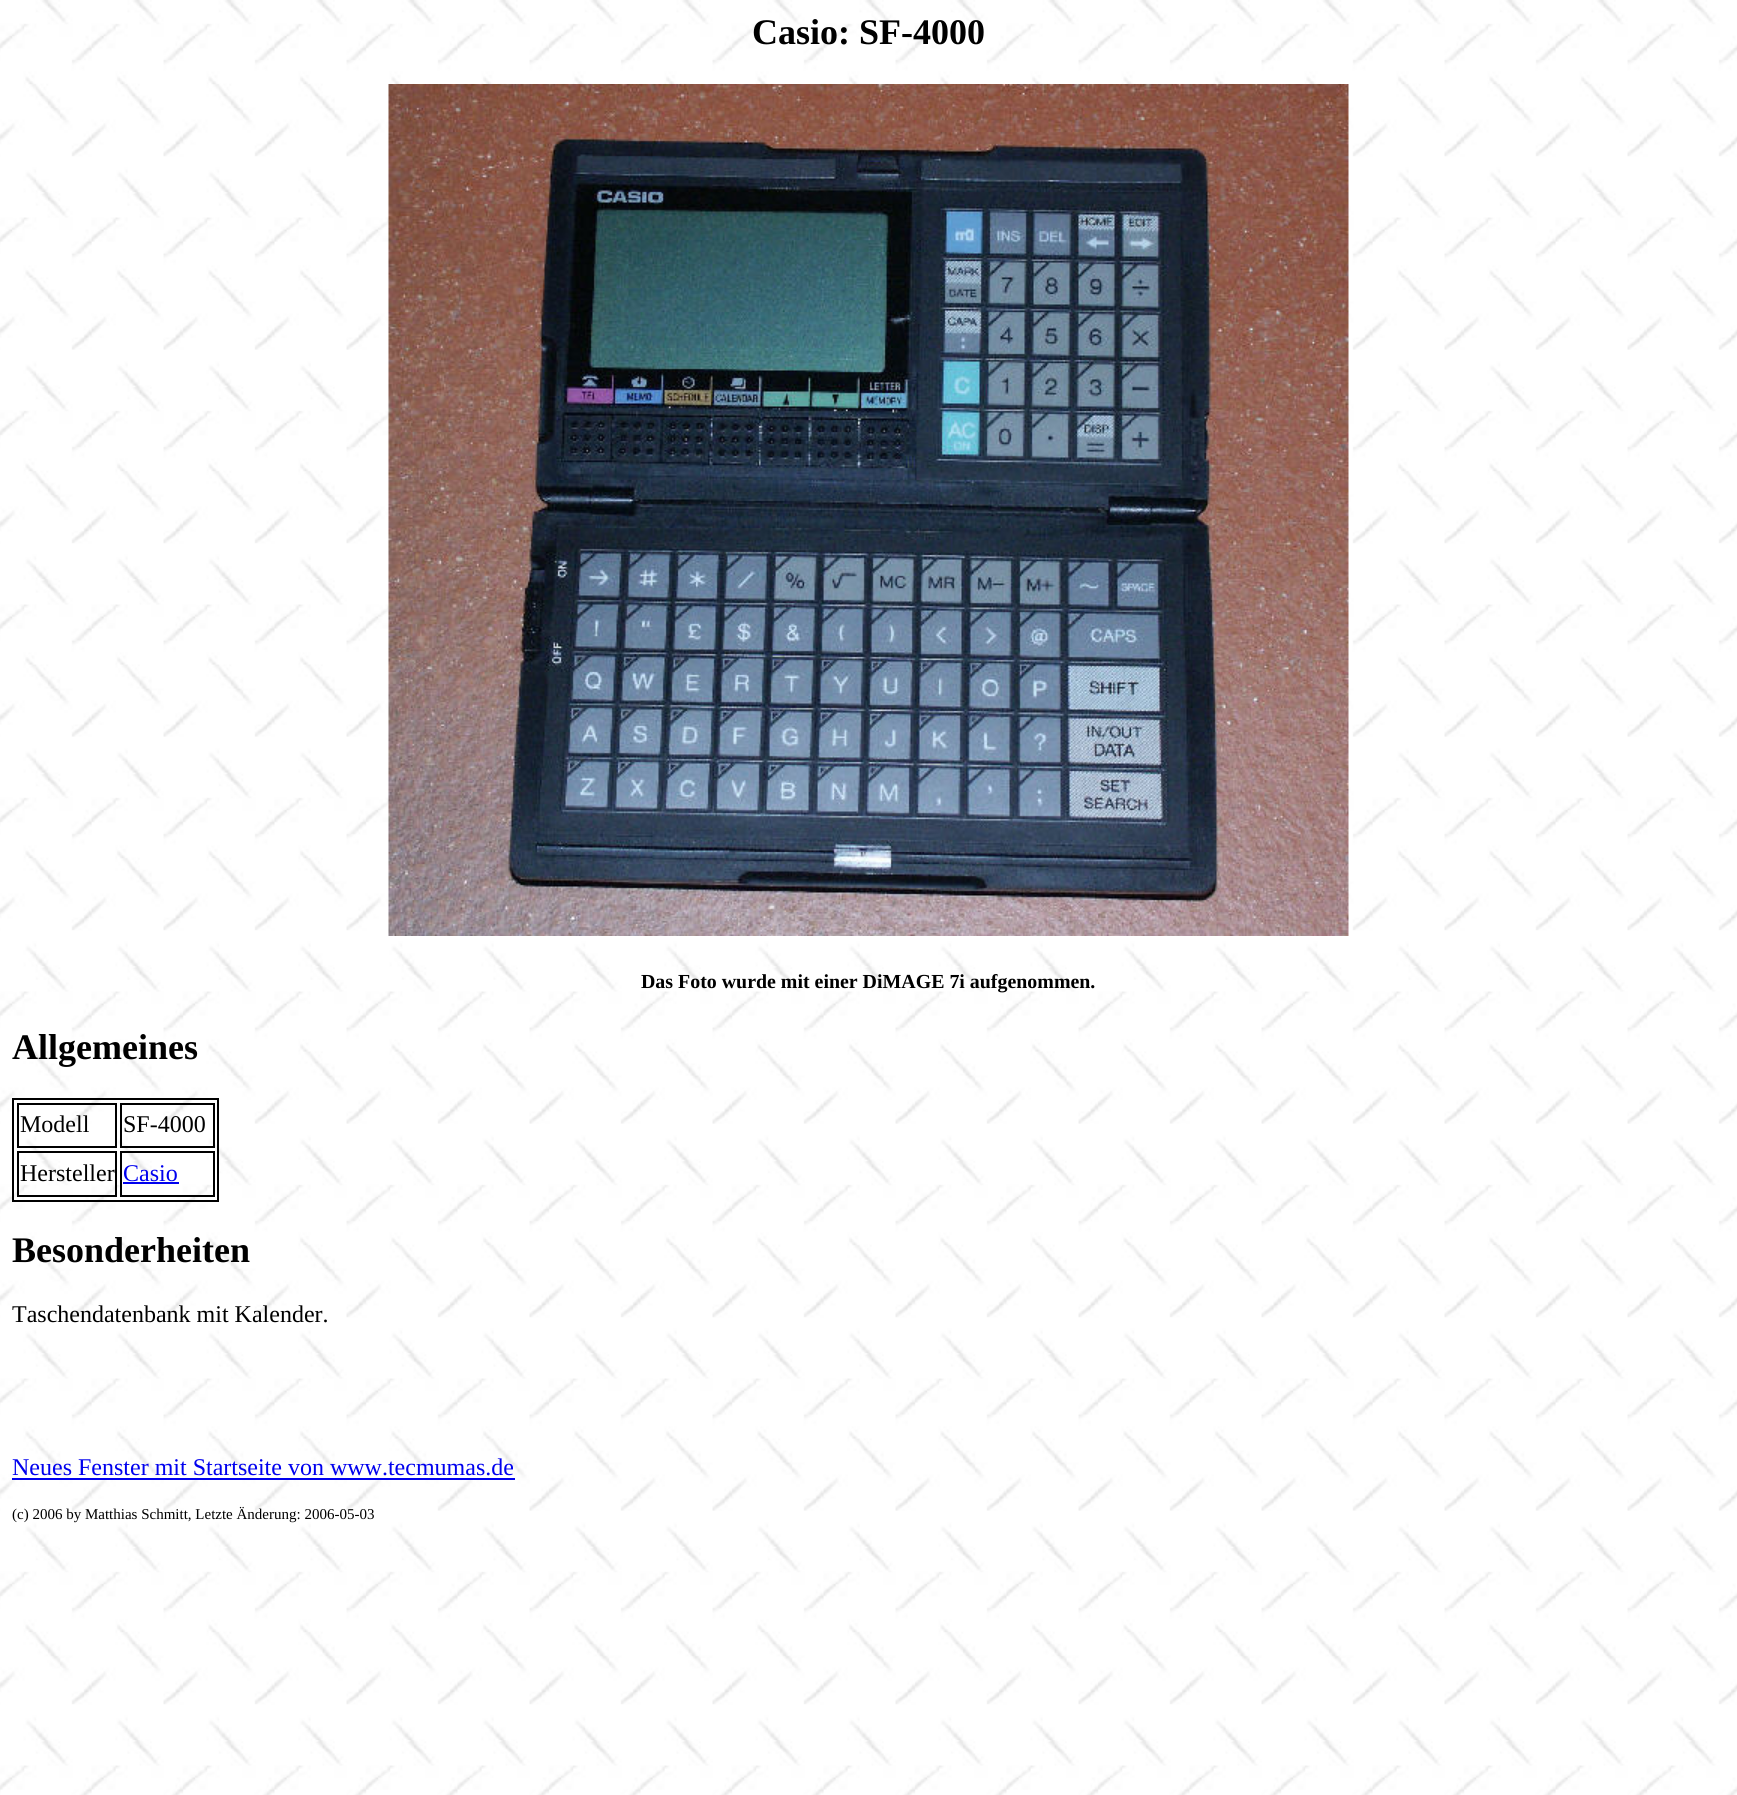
import math
import cairo


def use_color(cr, r, g, b):
  cr.set_source_rgb(r / 255, g / 255, b / 255)

def text(cr, x, y, s, family, size, color, bold=False, italic=False):
  cr.select_font_face(family, cairo.FONT_SLANT_ITALIC if italic else cairo.FONT_SLANT_NORMAL, cairo.FONT_WEIGHT_BOLD if bold else cairo.FONT_WEIGHT_NORMAL)
  cr.set_font_size(size)
  use_color(cr, *color)
  cr.move_to(x, y)
  cr.show_text(s)

def box(cr, x, y, w, h, *color):
  use_color(cr, *color)
  cr.rectangle(x, y, w, h)
  cr.fill()

def picture(cr, path, x, y, w, h):
  cr.save()
  cr.set_source_surface(cairo.ImageSurface.create_from_png(path), x, y)
  cr.rectangle(x, y, w, h)
  cr.fill()
  cr.restore()

def draw(cr):
  use_color(cr, 255, 255, 255)
  cr.paint()
  picture(cr, "img_01.png", 0, 0, 1737, 1795)
  picture(cr, "img_02.png", 388, 84, 961, 852)
  cr.rectangle(13, 1099, 205, 102)
  use_color(cr, 0, 0, 0)
  cr.stroke()
  cr.rectangle(18, 1104, 98, 43)
  cr.stroke()
  cr.rectangle(121, 1104, 93, 43)
  cr.stroke()
  cr.rectangle(18, 1152, 98, 44)
  cr.stroke()
  cr.rectangle(121, 1152, 93, 44)
  cr.stroke()
  box(cr, 123, 1182, 56, 2, 0, 0, 238)
  box(cr, 12, 1478, 503, 2, 0, 0, 238)
  text(cr, 752, 44, "Casio: SF-4000", "Liberation Serif", 36, (0, 0, 0), bold=True)
  text(cr, 641, 988, "Das Foto wurde mit einer DiMAGE 7i aufgenommen.", "Liberation Serif", 19.9, (0, 0, 0), bold=True)
  text(cr, 12, 1059, "Allgemeines", "Liberation Serif", 36, (0, 0, 0), bold=True)
  text(cr, 20, 1132, "Modell", "Liberation Serif", 24, (0, 0, 0))
  text(cr, 123, 1132, "SF-4000", "Liberation Serif", 24, (0, 0, 0))
  text(cr, 20, 1181, "Hersteller", "Liberation Serif", 24, (0, 0, 0))
  text(cr, 123, 1181, "Casio", "Liberation Serif", 24, (0, 0, 238))
  text(cr, 12, 1262, "Besonderheiten", "Liberation Serif", 36, (0, 0, 0), bold=True)
  text(cr, 12, 1322, "Taschendatenbank mit Kalender.", "Liberation Serif", 24, (0, 0, 0))
  text(cr, 12, 1475, "Neues Fenster mit Startseite von www.tecmumas.de", "Liberation Serif", 24, (0, 0, 238))
  text(cr, 12, 1519, "(c) 2006 by Matthias Schmitt, Letzte Änderung: 2006-05-03", "Liberation Serif", 15, (0, 0, 0))


surface = cairo.ImageSurface(cairo.FORMAT_RGB24, 1737, 1795)
cr = cairo.Context(surface)
options = cairo.FontOptions()
options.set_hint_metrics(cairo.HINT_METRICS_OFF)
options.set_hint_style(cairo.HINT_STYLE_NONE)
cr.set_font_options(options)
cr.set_miter_limit(4)
draw(cr)
surface.write_to_png("out.png")
